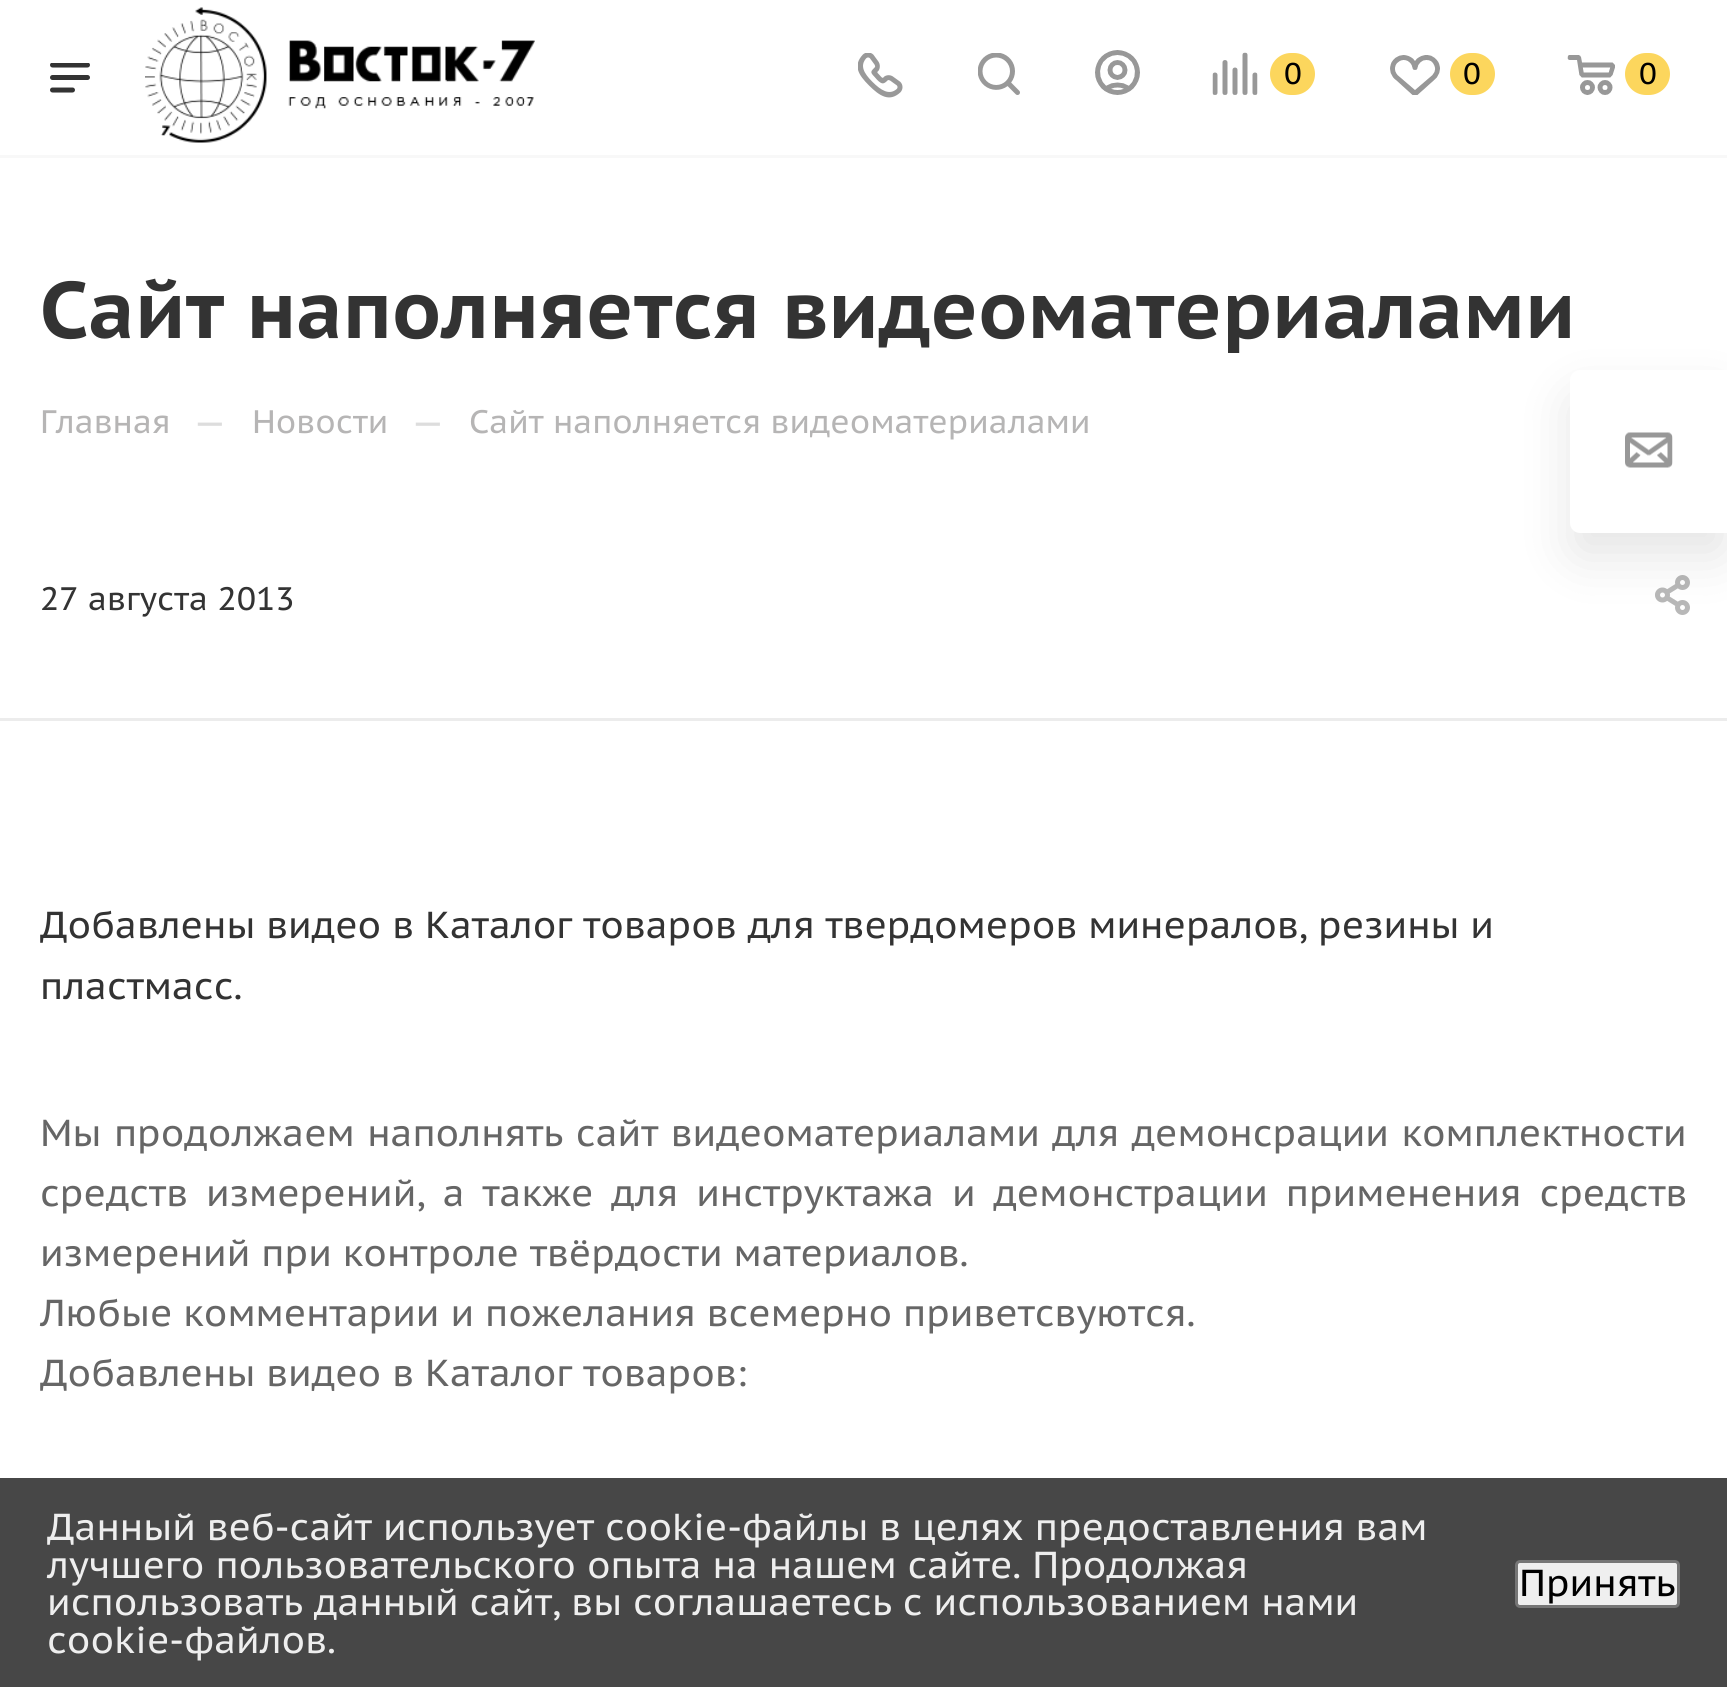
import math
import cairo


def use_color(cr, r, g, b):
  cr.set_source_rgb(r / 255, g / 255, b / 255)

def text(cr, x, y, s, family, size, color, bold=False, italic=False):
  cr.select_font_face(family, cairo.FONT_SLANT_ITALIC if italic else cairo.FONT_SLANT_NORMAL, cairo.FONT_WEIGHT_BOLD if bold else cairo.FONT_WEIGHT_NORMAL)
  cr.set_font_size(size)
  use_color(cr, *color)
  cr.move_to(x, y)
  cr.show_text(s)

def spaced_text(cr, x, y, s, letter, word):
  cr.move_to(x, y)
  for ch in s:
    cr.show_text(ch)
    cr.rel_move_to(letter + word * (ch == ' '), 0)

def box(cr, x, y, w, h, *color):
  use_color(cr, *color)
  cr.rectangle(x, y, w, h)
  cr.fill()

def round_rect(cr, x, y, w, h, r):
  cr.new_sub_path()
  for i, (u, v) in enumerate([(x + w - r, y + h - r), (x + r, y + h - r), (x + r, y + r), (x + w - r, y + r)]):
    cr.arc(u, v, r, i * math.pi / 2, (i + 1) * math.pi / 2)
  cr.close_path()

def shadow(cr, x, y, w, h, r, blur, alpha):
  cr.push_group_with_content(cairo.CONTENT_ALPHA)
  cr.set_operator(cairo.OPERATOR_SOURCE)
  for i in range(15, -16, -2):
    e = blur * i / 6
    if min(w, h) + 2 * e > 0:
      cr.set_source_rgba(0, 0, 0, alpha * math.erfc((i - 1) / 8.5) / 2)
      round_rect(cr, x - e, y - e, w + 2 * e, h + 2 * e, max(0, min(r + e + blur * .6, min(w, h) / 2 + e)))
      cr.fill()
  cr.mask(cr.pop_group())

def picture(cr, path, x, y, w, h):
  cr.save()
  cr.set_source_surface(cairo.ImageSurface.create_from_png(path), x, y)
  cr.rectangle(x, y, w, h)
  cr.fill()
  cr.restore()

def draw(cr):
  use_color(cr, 255, 255, 255)
  cr.paint()
  box(cr, 0, 155, 1727, 3, 248, 248, 248)
  picture(cr, "img_01.png", 50, 63, 40, 30)
  picture(cr, "img_02.png", 145, 7, 390, 136)
  picture(cr, "img_03.png", 858, 53, 45, 45)
  picture(cr, "img_04.png", 978, 53, 42, 42)
  picture(cr, "img_05.png", 1095, 50, 45, 45)
  picture(cr, "img_06.png", 1212, 52, 46, 43)
  use_color(cr, 252, 214, 93)
  round_rect(cr, 1270, 53, 45, 42, 21)
  cr.fill()
  picture(cr, "img_07.png", 1390, 55, 50, 40)
  round_rect(cr, 1450, 53, 45, 42, 21)
  cr.fill()
  picture(cr, "img_08.png", 1567, 55, 48, 40)
  round_rect(cr, 1625, 53, 45, 42, 21)
  cr.fill()
  picture(cr, "img_09.png", 1655, 575, 35, 40)
  box(cr, 0, 718, 1727, 3, 236, 236, 236)
  use_color(cr, 0, 0, 0)
  shadow(cr, 1570, 395, 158, 163, 10, 25, 0.1)
  use_color(cr, 255, 255, 255)
  cr.new_path()
  cr.move_to(1580, 370)
  cr.line_to(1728, 370)
  cr.line_to(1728, 533)
  cr.line_to(1580, 533)
  cr.curve_to(1574.5, 533, 1570, 528.5, 1570, 523)
  cr.line_to(1570, 380)
  cr.curve_to(1570, 374.5, 1574.5, 370, 1580, 370)
  cr.close_path()
  cr.fill()
  picture(cr, "img_10.png", 1625, 432, 48, 36)
  box(cr, 0, 1478, 1727, 209, 71, 71, 71)
  use_color(cr, 239, 239, 239)
  round_rect(cr, 1516.5, 1561.5, 162, 45, 3.5)
  cr.fill_preserve()
  use_color(cr, 118, 118, 118)
  cr.set_line_width(3)
  cr.stroke()
  text(cr, 1284, 84, "0", "PT Sans Caption", 30, (0, 0, 0))
  text(cr, 1463, 84, "0", "PT Sans Caption", 30, (0, 0, 0))
  text(cr, 1639, 84, "0", "PT Sans Caption", 30, (0, 0, 0))
  cr.save()
  cr.rectangle(40, 263, 1648, 90)
  cr.clip()
  text(cr, 40, 338, "Сайт наполняется видеоматериалами", "PT Sans Caption", 80, (51, 51, 51), bold=True)
  cr.restore()
  text(cr, 40, 433, "Главная", "PT Sans Caption", 32.5, (182, 181, 181))
  text(cr, 193, 435, "—", "PT Sans Caption", 37.5, (221, 221, 221))
  text(cr, 252, 433, "Новости", "PT Sans Caption", 32.5, (182, 181, 181))
  text(cr, 411, 435, "—", "PT Sans Caption", 37.5, (221, 221, 221))
  text(cr, 469, 433, "Сайт наполняется видеоматериалами", "PT Sans Caption", 32.5, (182, 181, 181))
  text(cr, 40, 610, "27 августа 2013", "PT Sans Caption", 32.5, (51, 51, 51))
  text(cr, 40, 938, "Добавлены видео в Каталог товаров для твердомеров минералов, резины и", "PT Sans Caption", 37.5, (51, 51, 51))
  text(cr, 40, 999, "пластмасс.", "PT Sans Caption", 37.5, (51, 51, 51))
  use_color(cr, 102, 102, 102)
  spaced_text(cr, 40, 1146, "Мы продолжаем наполнять сайт видеоматериалами для демонсрации комплектности", 0, 1.5)
  spaced_text(cr, 40, 1206, "средств измерений, а также для инструктажа и демонстрации применения средств", 0, 7)
  text(cr, 40, 1266, "измерений при контроле твёрдости материалов.", "PT Sans Caption", 37.5, (102, 102, 102))
  text(cr, 40, 1326, "Любые комментарии и пожелания всемерно приветсвуются.", "PT Sans Caption", 37.5, (102, 102, 102))
  text(cr, 40, 1386, "Добавлены видео в Каталог товаров:", "PT Sans Caption", 37.5, (102, 102, 102))
  text(cr, 47, 1540, "Данный веб-сайт использует cookie-файлы в целях предоставления вам", "PT Sans Caption", 37.5, (238, 238, 238))
  text(cr, 47, 1578, "лучшего пользовательского опыта на нашем сайте. Продолжая", "PT Sans Caption", 37.5, (238, 238, 238))
  text(cr, 47, 1615, "использовать данный сайт, вы соглашаетесь с использованием нами", "PT Sans Caption", 37.5, (238, 238, 238))
  text(cr, 47, 1653, "cookie-файлов.", "PT Sans Caption", 37.5, (238, 238, 238))
  text(cr, 1519, 1596, "Принять", "PT Sans Caption", 37.5, (0, 0, 0))


surface = cairo.ImageSurface(cairo.FORMAT_RGB24, 1727, 1687)
cr = cairo.Context(surface)
options = cairo.FontOptions()
options.set_hint_metrics(cairo.HINT_METRICS_OFF)
options.set_hint_style(cairo.HINT_STYLE_NONE)
cr.set_font_options(options)
cr.set_miter_limit(4)
draw(cr)
surface.write_to_png("out.png")
